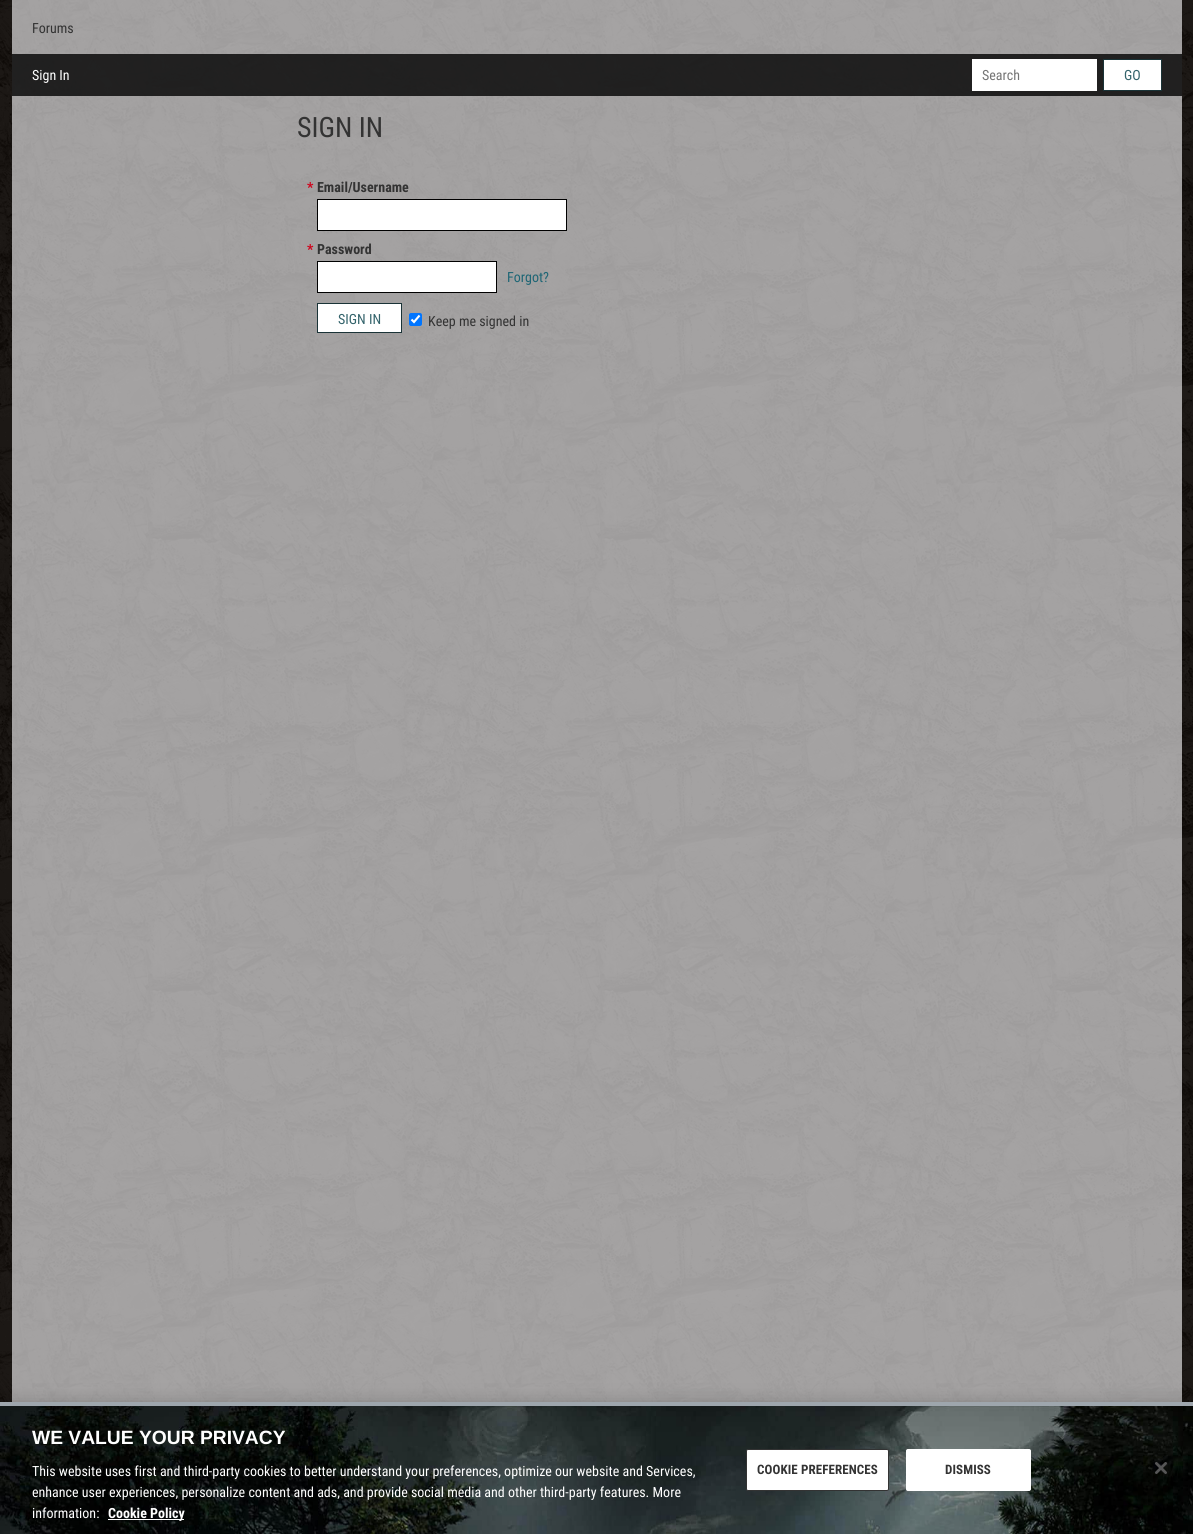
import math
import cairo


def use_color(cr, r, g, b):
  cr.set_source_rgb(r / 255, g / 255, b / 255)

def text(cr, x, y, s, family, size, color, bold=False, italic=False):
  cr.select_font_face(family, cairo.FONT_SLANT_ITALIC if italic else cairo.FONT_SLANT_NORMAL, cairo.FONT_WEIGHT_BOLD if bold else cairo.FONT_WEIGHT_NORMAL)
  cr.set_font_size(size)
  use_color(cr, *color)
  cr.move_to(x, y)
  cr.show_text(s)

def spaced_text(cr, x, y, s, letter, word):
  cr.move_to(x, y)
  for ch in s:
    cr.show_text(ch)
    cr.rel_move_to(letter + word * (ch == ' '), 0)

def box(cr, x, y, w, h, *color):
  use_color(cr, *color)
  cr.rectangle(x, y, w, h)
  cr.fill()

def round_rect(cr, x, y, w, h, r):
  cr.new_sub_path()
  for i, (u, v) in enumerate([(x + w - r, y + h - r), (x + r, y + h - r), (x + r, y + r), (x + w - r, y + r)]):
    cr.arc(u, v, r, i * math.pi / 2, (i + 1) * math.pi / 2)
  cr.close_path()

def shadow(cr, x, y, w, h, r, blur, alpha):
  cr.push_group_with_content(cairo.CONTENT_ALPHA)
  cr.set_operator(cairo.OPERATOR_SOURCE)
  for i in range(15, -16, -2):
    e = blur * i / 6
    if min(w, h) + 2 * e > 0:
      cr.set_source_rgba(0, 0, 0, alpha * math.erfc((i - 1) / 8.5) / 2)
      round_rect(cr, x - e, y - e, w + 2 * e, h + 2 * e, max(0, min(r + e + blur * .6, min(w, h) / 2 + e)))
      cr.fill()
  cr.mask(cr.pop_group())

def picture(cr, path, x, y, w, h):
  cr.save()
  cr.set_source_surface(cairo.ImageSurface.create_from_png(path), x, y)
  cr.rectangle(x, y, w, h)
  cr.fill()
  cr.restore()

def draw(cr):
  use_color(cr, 10, 6, 2)
  cr.paint()
  box(cr, 12, 0, 1170, 1402, 157, 155, 154)
  picture(cr, "img_01.png", 0, 0, 1193, 1402)
  cr.set_source_rgba(0, 0, 0, 0.8)
  cr.rectangle(12, 54, 1170, 42)
  cr.fill()
  box(cr, 972, 59, 125, 32, 255, 255, 255)
  cr.rectangle(1103.5, 59.5, 58, 31)
  cr.fill_preserve()
  use_color(cr, 26, 51, 55)
  cr.set_line_width(1)
  cr.stroke()
  use_color(cr, 255, 255, 255)
  cr.rectangle(317.5, 199.5, 249, 31)
  cr.fill_preserve()
  use_color(cr, 0, 0, 0)
  cr.stroke()
  use_color(cr, 255, 255, 255)
  cr.rectangle(317.5, 261.5, 179, 31)
  cr.fill_preserve()
  use_color(cr, 0, 0, 0)
  cr.stroke()
  use_color(cr, 255, 255, 255)
  cr.rectangle(317.5, 303.5, 84, 29)
  cr.fill_preserve()
  use_color(cr, 26, 51, 55)
  cr.stroke()
  use_color(cr, 0, 117, 255)
  round_rect(cr, 409, 313, 13, 13, 2)
  cr.fill()
  cr.new_path()
  cr.move_to(411.5, 319.5)
  cr.line_to(414, 322)
  cr.line_to(419.5, 315.5)
  use_color(cr, 255, 255, 255)
  cr.set_line_width(2.1)
  cr.stroke()
  use_color(cr, 0, 0, 0)
  shadow(cr, 0, 1402, 1193, 132, 0, 9, 0.2)
  box(cr, 0, 1402, 1193, 4, 158, 166, 173)
  picture(cr, "img_02.png", 0, 1406, 1193, 128)
  box(cr, 108, 1519, 76, 1, 255, 255, 255)
  round_rect(cr, 746.5, 1449.5, 142, 41, 1.5)
  cr.fill_preserve()
  use_color(cr, 51, 51, 51)
  cr.set_line_width(1)
  cr.stroke()
  use_color(cr, 255, 255, 255)
  round_rect(cr, 906.5, 1449.5, 124, 41, 1.5)
  cr.fill_preserve()
  cr.stroke()
  picture(cr, "img_03.png", 1155, 1462, 12, 12)
  text(cr, 32, 33, "Forums", "Roboto Condensed", 14, (51, 51, 51))
  text(cr, 32, 80, "Sign In", "Roboto Condensed", 14, (255, 255, 255))
  text(cr, 982, 80, "Search", "Roboto Condensed", 14, (117, 117, 117))
  text(cr, 1124, 80, "GO", "Roboto Condensed", 14, (51, 99, 107))
  text(cr, 297, 137, "SIGN IN", "Roboto Condensed", 28, (51, 51, 51))
  text(cr, 307, 192, "*", "Roboto Condensed", 14, (208, 2, 27), bold=True)
  text(cr, 317, 192, "Email/Username", "Roboto Condensed", 14, (51, 51, 51), bold=True)
  text(cr, 307, 254, "*", "Roboto Condensed", 14, (208, 2, 27), bold=True)
  text(cr, 317, 254, "Password", "Roboto Condensed", 14, (51, 51, 51), bold=True)
  text(cr, 507, 282, "Forgot?", "Roboto Condensed", 14, (30, 102, 117))
  text(cr, 338, 324, "SIGN IN", "Roboto Condensed", 14, (51, 99, 107))
  text(cr, 428, 326, "Keep me signed in", "Roboto Condensed", 14, (51, 51, 51))
  text(cr, 32, 1444, "WE VALUE YOUR PRIVACY", "Liberation Sans", 19.25, (255, 255, 255), bold=True)
  text(cr, 32, 1476, "This website uses first and third-party cookies to better understand your preferences, optimize our website and Services,", "Roboto Condensed", 14, (255, 255, 255))
  text(cr, 32, 1497, "enhance user experiences, personalize content and ads, and provide social media and other third-party features. More", "Roboto Condensed", 14, (255, 255, 255))
  text(cr, 32, 1518, "information:", "Roboto Condensed", 14, (255, 255, 255))
  text(cr, 108, 1518, "Cookie Policy", "Roboto Condensed", 14, (255, 255, 255), bold=True)
  cr.set_font_size(13)
  use_color(cr, 51, 51, 51)
  spaced_text(cr, 757, 1474, "COOKIE PREFERENCES", 0.1, 0)
  spaced_text(cr, 945, 1474, "DISMISS", 0.1, 0)


surface = cairo.ImageSurface(cairo.FORMAT_RGB24, 1193, 1534)
cr = cairo.Context(surface)
options = cairo.FontOptions()
options.set_hint_metrics(cairo.HINT_METRICS_OFF)
options.set_hint_style(cairo.HINT_STYLE_NONE)
cr.set_font_options(options)
cr.set_miter_limit(4)
draw(cr)
surface.write_to_png("out.png")
